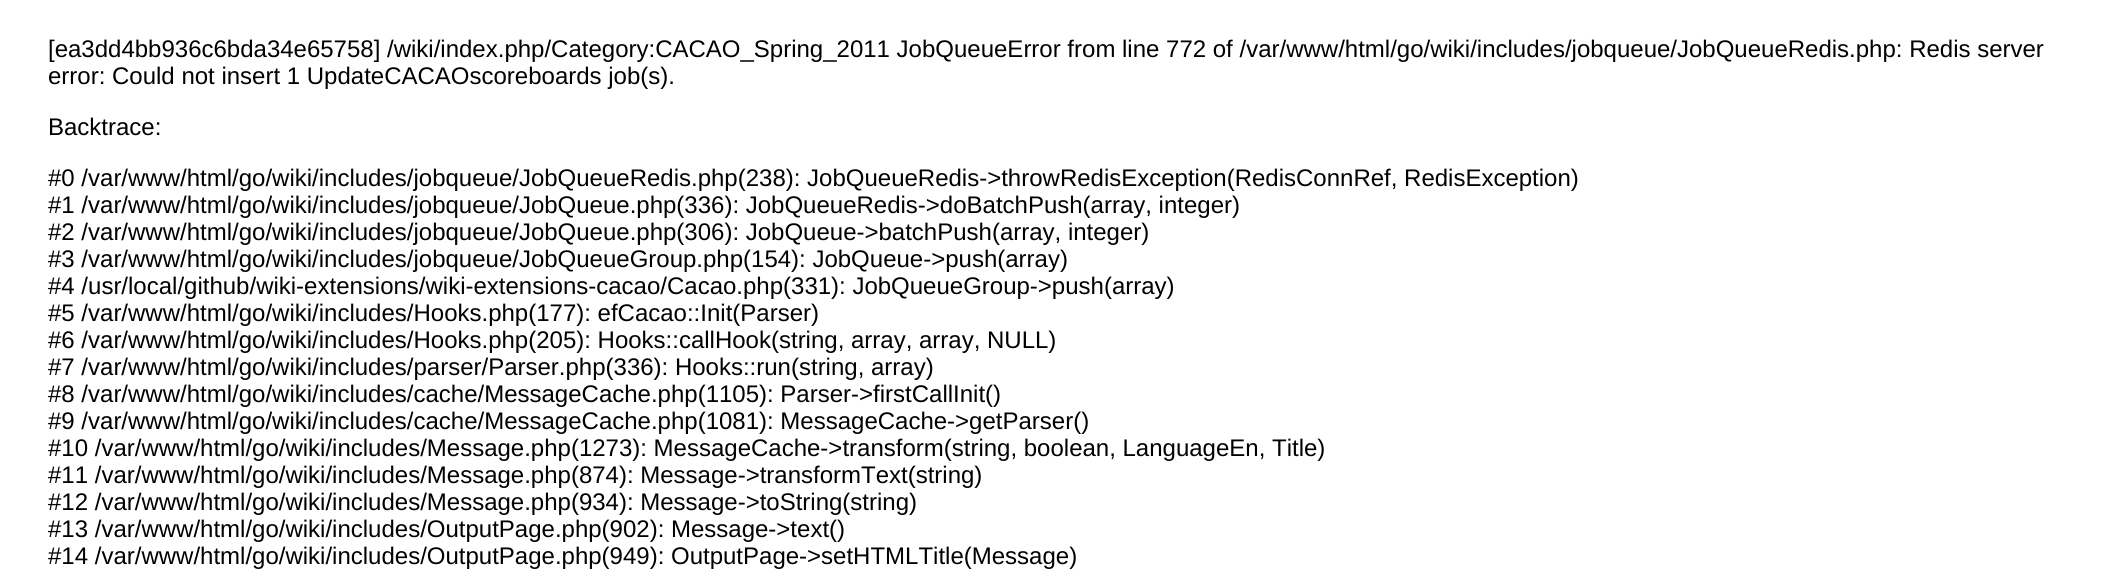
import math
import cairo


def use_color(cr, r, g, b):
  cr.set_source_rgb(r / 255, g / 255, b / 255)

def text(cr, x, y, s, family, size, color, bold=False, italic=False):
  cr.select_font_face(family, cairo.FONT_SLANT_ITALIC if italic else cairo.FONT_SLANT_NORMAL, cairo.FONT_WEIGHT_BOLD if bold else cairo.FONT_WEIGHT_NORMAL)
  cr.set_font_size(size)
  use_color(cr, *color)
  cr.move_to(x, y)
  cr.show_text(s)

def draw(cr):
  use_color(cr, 255, 255, 255)
  cr.paint()
  text(cr, 48, 57, "[ea3dd4bb936c6bda34e65758] /wiki/index.php/Category:CACAO_Spring_2011 JobQueueError from line 772 of /var/www/html/go/wiki/includes/jobqueue/JobQueueRedis.php: Redis server", "Liberation Sans", 24, (0, 0, 0))
  text(cr, 48, 84, "error: Could not insert 1 UpdateCACAOscoreboards job(s).", "Liberation Sans", 24, (0, 0, 0))
  text(cr, 48, 135, "Backtrace:", "Liberation Sans", 24, (0, 0, 0))
  text(cr, 48, 186, "#0 /var/www/html/go/wiki/includes/jobqueue/JobQueueRedis.php(238): JobQueueRedis->throwRedisException(RedisConnRef, RedisException)", "Liberation Sans", 24, (0, 0, 0))
  text(cr, 48, 213, "#1 /var/www/html/go/wiki/includes/jobqueue/JobQueue.php(336): JobQueueRedis->doBatchPush(array, integer)", "Liberation Sans", 24, (0, 0, 0))
  text(cr, 48, 240, "#2 /var/www/html/go/wiki/includes/jobqueue/JobQueue.php(306): JobQueue->batchPush(array, integer)", "Liberation Sans", 24, (0, 0, 0))
  text(cr, 48, 267, "#3 /var/www/html/go/wiki/includes/jobqueue/JobQueueGroup.php(154): JobQueue->push(array)", "Liberation Sans", 24, (0, 0, 0))
  text(cr, 48, 294, "#4 /usr/local/github/wiki-extensions/wiki-extensions-cacao/Cacao.php(331): JobQueueGroup->push(array)", "Liberation Sans", 24, (0, 0, 0))
  text(cr, 48, 321, "#5 /var/www/html/go/wiki/includes/Hooks.php(177): efCacao::Init(Parser)", "Liberation Sans", 24, (0, 0, 0))
  text(cr, 48, 348, "#6 /var/www/html/go/wiki/includes/Hooks.php(205): Hooks::callHook(string, array, array, NULL)", "Liberation Sans", 24, (0, 0, 0))
  text(cr, 48, 375, "#7 /var/www/html/go/wiki/includes/parser/Parser.php(336): Hooks::run(string, array)", "Liberation Sans", 24, (0, 0, 0))
  text(cr, 48, 402, "#8 /var/www/html/go/wiki/includes/cache/MessageCache.php(1105): Parser->firstCallInit()", "Liberation Sans", 24, (0, 0, 0))
  text(cr, 48, 429, "#9 /var/www/html/go/wiki/includes/cache/MessageCache.php(1081): MessageCache->getParser()", "Liberation Sans", 24, (0, 0, 0))
  text(cr, 48, 456, "#10 /var/www/html/go/wiki/includes/Message.php(1273): MessageCache->transform(string, boolean, LanguageEn, Title)", "Liberation Sans", 24, (0, 0, 0))
  text(cr, 48, 483, "#11 /var/www/html/go/wiki/includes/Message.php(874): Message->transformText(string)", "Liberation Sans", 24, (0, 0, 0))
  text(cr, 48, 510, "#12 /var/www/html/go/wiki/includes/Message.php(934): Message->toString(string)", "Liberation Sans", 24, (0, 0, 0))
  text(cr, 48, 537, "#13 /var/www/html/go/wiki/includes/OutputPage.php(902): Message->text()", "Liberation Sans", 24, (0, 0, 0))
  text(cr, 48, 564, "#14 /var/www/html/go/wiki/includes/OutputPage.php(949): OutputPage->setHTMLTitle(Message)", "Liberation Sans", 24, (0, 0, 0))


surface = cairo.ImageSurface(cairo.FORMAT_RGB24, 2109, 584)
cr = cairo.Context(surface)
options = cairo.FontOptions()
options.set_hint_metrics(cairo.HINT_METRICS_OFF)
options.set_hint_style(cairo.HINT_STYLE_NONE)
cr.set_font_options(options)
cr.set_miter_limit(4)
draw(cr)
surface.write_to_png("out.png")
